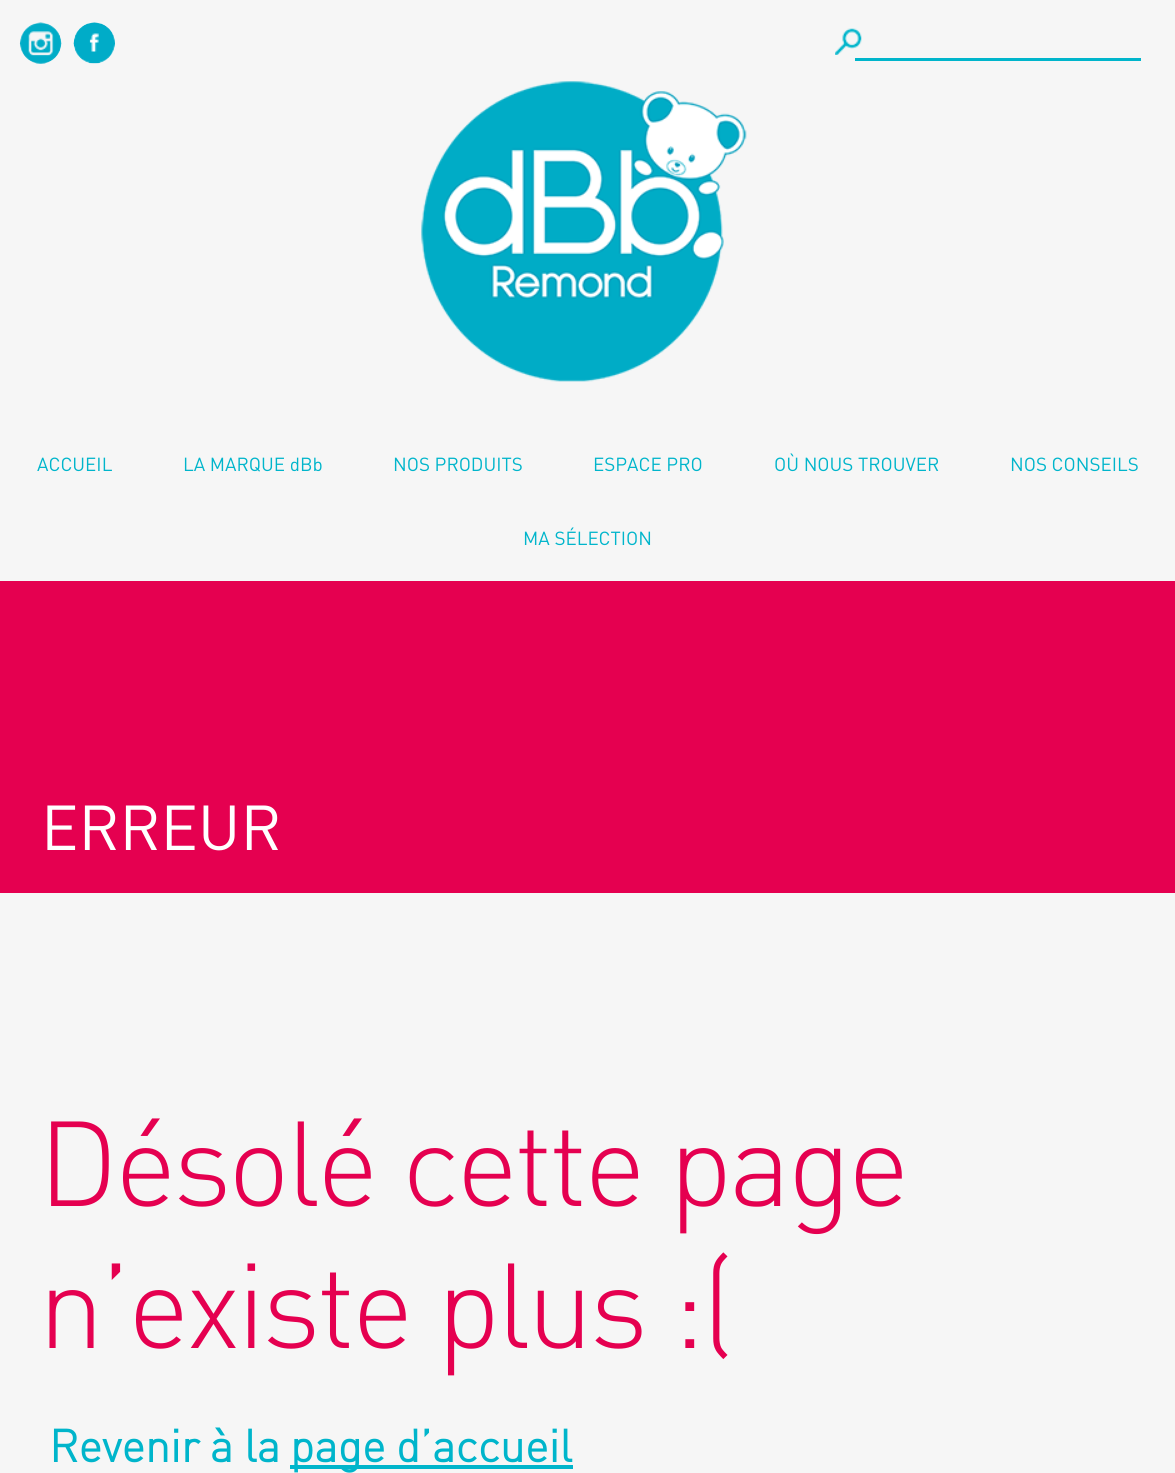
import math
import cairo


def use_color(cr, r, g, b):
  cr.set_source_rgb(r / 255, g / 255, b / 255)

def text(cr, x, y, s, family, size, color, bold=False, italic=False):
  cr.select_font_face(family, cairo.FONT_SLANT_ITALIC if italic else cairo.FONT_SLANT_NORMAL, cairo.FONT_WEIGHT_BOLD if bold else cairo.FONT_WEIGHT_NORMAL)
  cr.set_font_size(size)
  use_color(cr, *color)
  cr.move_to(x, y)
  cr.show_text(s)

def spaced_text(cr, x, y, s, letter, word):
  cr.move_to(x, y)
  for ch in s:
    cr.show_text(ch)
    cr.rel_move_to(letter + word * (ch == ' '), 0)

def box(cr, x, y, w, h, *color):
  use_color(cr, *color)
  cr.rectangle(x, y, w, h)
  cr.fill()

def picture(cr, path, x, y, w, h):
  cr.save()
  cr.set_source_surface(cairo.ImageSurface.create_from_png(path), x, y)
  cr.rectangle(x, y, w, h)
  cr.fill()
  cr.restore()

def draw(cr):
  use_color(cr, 246, 246, 246)
  cr.paint()
  picture(cr, "img_01.png", 19, 22, 43, 42)
  picture(cr, "img_02.png", 73, 22, 42, 42)
  picture(cr, "img_03.png", 835, 28, 27, 27)
  box(cr, 855, 58, 286, 3, 0, 181, 203)
  picture(cr, "img_04.png", 421, 81, 326, 301)
  box(cr, 0, 581, 1175, 312, 229, 0, 80)
  box(cr, 290, 1465, 283, 4, 0, 181, 203)
  text(cr, 37, 471, "ACCUEIL", "DIN", 18.75, (0, 181, 203))
  text(cr, 183, 471, "LA MARQUE dBb", "DIN", 18.75, (0, 181, 203))
  text(cr, 393, 471, "NOS PRODUITS", "DIN", 18.75, (0, 181, 203))
  text(cr, 593, 471, "ESPACE PRO", "DIN", 18.75, (0, 181, 203))
  text(cr, 774, 471, "OÙ NOUS TROUVER", "DIN", 18.75, (0, 181, 203))
  text(cr, 1010, 471, "NOS CONSEILS", "DIN", 18.75, (0, 181, 203))
  text(cr, 523, 545, "MA SÉLECTION", "DIN", 18.75, (0, 181, 203))
  text(cr, 41, 850, "ERREUR", "DIN", 62.5, (255, 255, 255))
  cr.select_font_face("DIN Light")
  cr.set_font_size(118.75)
  use_color(cr, 229, 0, 80)
  spaced_text(cr, 38, 1206, "Désolé cette page", -3.75, 0)
  spaced_text(cr, 38, 1348, "n’existe plus :(", -3.75, 0)
  cr.select_font_face("DIN", cairo.FONT_SLANT_NORMAL, cairo.FONT_WEIGHT_BOLD)
  cr.set_font_size(45)
  use_color(cr, 0, 181, 203)
  spaced_text(cr, 49, 1462, "Revenir à la", 0, -1)
  spaced_text(cr, 290, 1462, "page d’accueil", 0, -1)


surface = cairo.ImageSurface(cairo.FORMAT_RGB24, 1175, 1473)
cr = cairo.Context(surface)
options = cairo.FontOptions()
options.set_hint_metrics(cairo.HINT_METRICS_OFF)
options.set_hint_style(cairo.HINT_STYLE_NONE)
cr.set_font_options(options)
cr.set_miter_limit(4)
draw(cr)
surface.write_to_png("out.png")
